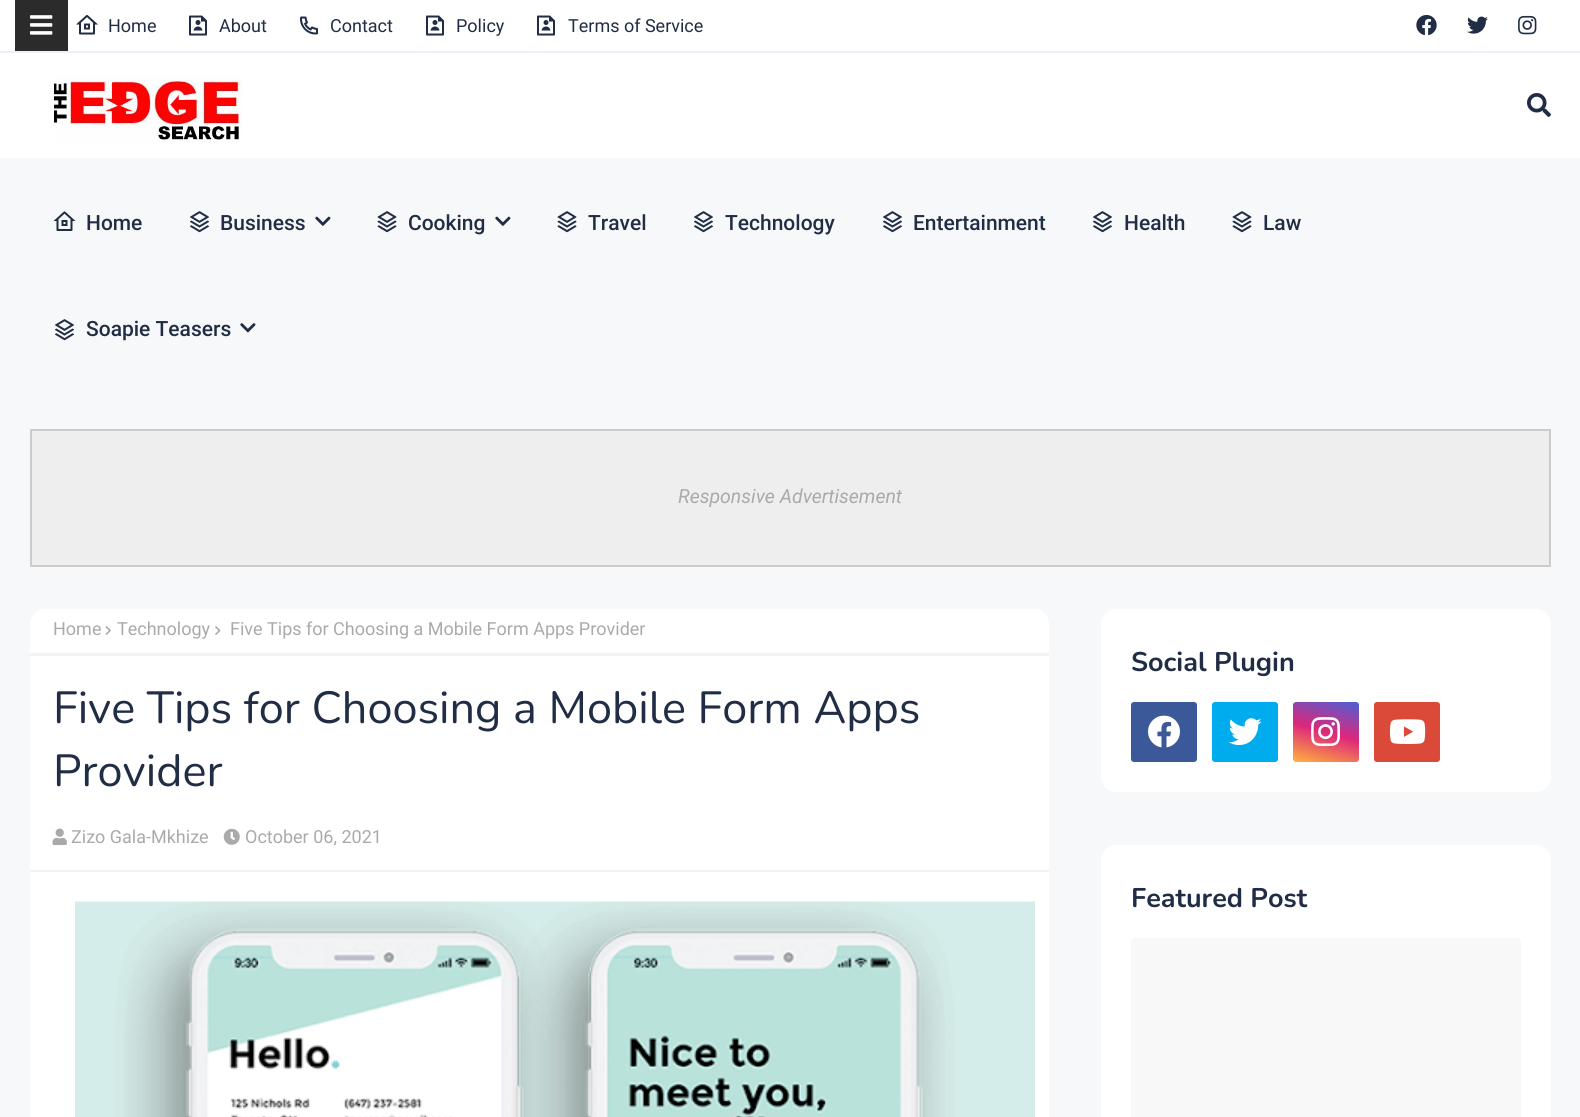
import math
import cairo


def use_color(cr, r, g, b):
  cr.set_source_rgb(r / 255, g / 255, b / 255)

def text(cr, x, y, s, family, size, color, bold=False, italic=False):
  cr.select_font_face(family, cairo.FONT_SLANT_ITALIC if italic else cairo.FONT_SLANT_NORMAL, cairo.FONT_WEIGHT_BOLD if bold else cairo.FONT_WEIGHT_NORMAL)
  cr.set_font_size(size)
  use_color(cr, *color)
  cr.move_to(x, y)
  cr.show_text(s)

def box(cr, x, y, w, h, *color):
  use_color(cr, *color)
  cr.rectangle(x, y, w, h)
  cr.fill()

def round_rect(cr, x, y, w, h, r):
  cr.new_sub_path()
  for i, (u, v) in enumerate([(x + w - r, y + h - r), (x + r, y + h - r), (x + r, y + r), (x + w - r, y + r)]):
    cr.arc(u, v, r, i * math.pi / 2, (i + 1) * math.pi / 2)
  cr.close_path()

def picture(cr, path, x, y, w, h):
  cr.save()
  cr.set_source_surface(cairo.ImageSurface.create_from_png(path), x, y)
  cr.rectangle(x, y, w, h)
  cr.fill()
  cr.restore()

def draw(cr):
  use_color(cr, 247, 248, 249)
  cr.paint()
  box(cr, 0, 0, 1580, 51, 255, 255, 255)
  box(cr, 0, 51, 1580, 2, 238, 240, 249)
  box(cr, 15, 0, 53, 51, 43, 43, 43)
  picture(cr, "img_01.png", 30, 15, 23, 20)
  picture(cr, "img_02.png", 76, 14, 22, 21)
  picture(cr, "img_03.png", 189, 15, 18, 21)
  picture(cr, "img_04.png", 300, 16, 18, 19)
  picture(cr, "img_03.png", 426, 15, 18, 21)
  picture(cr, "img_03.png", 537, 15, 18, 21)
  picture(cr, "img_05.png", 1416, 15, 21, 21)
  picture(cr, "img_06.png", 1467, 16, 21, 18)
  picture(cr, "img_07.png", 1518, 15, 19, 20)
  box(cr, 0, 53, 1580, 105, 255, 255, 255)
  picture(cr, "img_08.png", 54, 75, 189, 68)
  picture(cr, "img_09.png", 1527, 93, 24, 24)
  picture(cr, "img_10.png", 53, 211, 23, 20)
  picture(cr, "img_11.png", 190, 211, 19, 22)
  picture(cr, "img_12.png", 315, 216, 16, 10)
  picture(cr, "img_13.png", 377, 211, 20, 22)
  picture(cr, "img_12.png", 495, 216, 16, 10)
  picture(cr, "img_13.png", 557, 211, 20, 22)
  picture(cr, "img_11.png", 694, 211, 19, 22)
  picture(cr, "img_11.png", 883, 211, 19, 22)
  picture(cr, "img_11.png", 1093, 211, 19, 22)
  picture(cr, "img_13.png", 1232, 211, 20, 22)
  picture(cr, "img_11.png", 55, 319, 19, 22)
  picture(cr, "img_14.png", 240, 323, 16, 10)
  use_color(cr, 238, 238, 238)
  cr.rectangle(31, 430, 1519, 136)
  cr.fill_preserve()
  use_color(cr, 204, 204, 204)
  cr.stroke()
  use_color(cr, 255, 255, 255)
  cr.new_path()
  cr.move_to(45, 609)
  cr.line_to(1034, 609)
  cr.curve_to(1042.5, 609, 1049, 615.5, 1049, 624)
  cr.line_to(1049, 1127)
  cr.curve_to(1049, 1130, 1047, 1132, 1044, 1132)
  cr.line_to(35, 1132)
  cr.curve_to(32, 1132, 30, 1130, 30, 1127)
  cr.line_to(30, 624)
  cr.curve_to(30, 615.5, 36.5, 609, 45, 609)
  cr.close_path()
  cr.fill()
  box(cr, 30, 653, 1019, 3, 242, 242, 246)
  picture(cr, "img_15.png", 105, 626, 6, 9)
  picture(cr, "img_16.png", 215, 626, 6, 9)
  picture(cr, "img_17.png", 52, 828, 15, 18)
  picture(cr, "img_18.png", 223, 828, 17, 17)
  box(cr, 30, 870, 1019, 2, 242, 242, 246)
  picture(cr, "img_19.png", 75, 901, 960, 216)
  use_color(cr, 255, 255, 255)
  round_rect(cr, 1101, 609, 450, 183, 15)
  cr.fill()
  use_color(cr, 59, 89, 153)
  round_rect(cr, 1131, 702, 66, 60, 3)
  cr.fill()
  picture(cr, "img_20.png", 1148, 715, 32, 33)
  use_color(cr, 0, 172, 238)
  round_rect(cr, 1212, 702, 66, 60, 3)
  cr.fill()
  picture(cr, "img_21.png", 1228, 718, 34, 27)
  gradient = cairo.LinearGradient(1316, 768, 1336, 696)
  gradient.add_color_stop_rgba(0, 1, 0.694, 0.239, 1)
  gradient.add_color_stop_rgba(0.5, 0.867, 0.153, 0.482, 1)
  gradient.add_color_stop_rgba(1, 0.302, 0.369, 0.831, 1)
  cr.set_source(gradient)
  round_rect(cr, 1293, 702, 66, 60, 3)
  cr.fill()
  picture(cr, "img_22.png", 1311, 717, 29, 30)
  use_color(cr, 219, 74, 57)
  round_rect(cr, 1374, 702, 66, 60, 3)
  cr.fill()
  picture(cr, "img_23.png", 1389, 719, 37, 25)
  use_color(cr, 255, 255, 255)
  round_rect(cr, 1101, 845, 450, 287, 15)
  cr.fill()
  use_color(cr, 248, 248, 248)
  round_rect(cr, 1131, 938, 390, 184, 5)
  cr.fill()
  text(cr, 108, 32, "Home", "Roboto", 18, (33, 45, 69))
  text(cr, 219, 32, "About", "Roboto", 18, (33, 45, 69))
  text(cr, 330, 32, "Contact", "Roboto", 18, (33, 45, 69))
  text(cr, 456, 32, "Policy", "Roboto", 18, (33, 45, 69))
  text(cr, 568, 32, "Terms of Service", "Roboto", 18, (33, 45, 69))
  text(cr, 86, 230, "Home", "Roboto Medium", 21, (33, 45, 69))
  text(cr, 220, 230, "Business", "Roboto Medium", 21, (33, 45, 69))
  text(cr, 408, 230, "Cooking", "Roboto Medium", 21, (33, 45, 69))
  text(cr, 588, 230, "Travel", "Roboto Medium", 21, (33, 45, 69))
  text(cr, 725, 230, "Technology", "Roboto Medium", 21, (33, 45, 69))
  text(cr, 913, 230, "Entertainment", "Roboto Medium", 21, (33, 45, 69))
  text(cr, 1124, 230, "Health", "Roboto Medium", 21, (33, 45, 69))
  text(cr, 1263, 230, "Law", "Roboto Medium", 21, (33, 45, 69))
  text(cr, 86, 336, "Soapie Teasers", "Roboto Medium", 21, (33, 45, 69))
  text(cr, 678, 503, "Responsive Advertisement", "Roboto", 19.5, (170, 170, 170), italic=True)
  text(cr, 53, 635, "Home", "Roboto", 18, (170, 170, 170))
  text(cr, 117, 635, "Technology", "Roboto", 18, (170, 170, 170))
  text(cr, 230, 635, "Five Tips for Choosing a Mobile Form Apps Provider", "Roboto", 18, (170, 170, 170))
  text(cr, 53, 723, "Five Tips for Choosing a Mobile Form Apps", "Nunito", 45, (33, 45, 69))
  text(cr, 53, 786, "Provider", "Nunito", 45, (33, 45, 69))
  text(cr, 71, 843, "Zizo Gala-Mkhize", "Roboto", 18, (170, 170, 170))
  text(cr, 245, 843, "October 06, 2021", "Roboto", 18, (170, 170, 170))
  text(cr, 1131, 671, "Social Plugin", "Nunito", 27, (33, 45, 69), bold=True)
  text(cr, 1131, 907, "Featured Post", "Nunito", 27, (33, 45, 69), bold=True)


surface = cairo.ImageSurface(cairo.FORMAT_RGB24, 1580, 1117)
cr = cairo.Context(surface)
options = cairo.FontOptions()
options.set_hint_metrics(cairo.HINT_METRICS_OFF)
options.set_hint_style(cairo.HINT_STYLE_NONE)
cr.set_font_options(options)
cr.set_miter_limit(4)
draw(cr)
surface.write_to_png("out.png")
